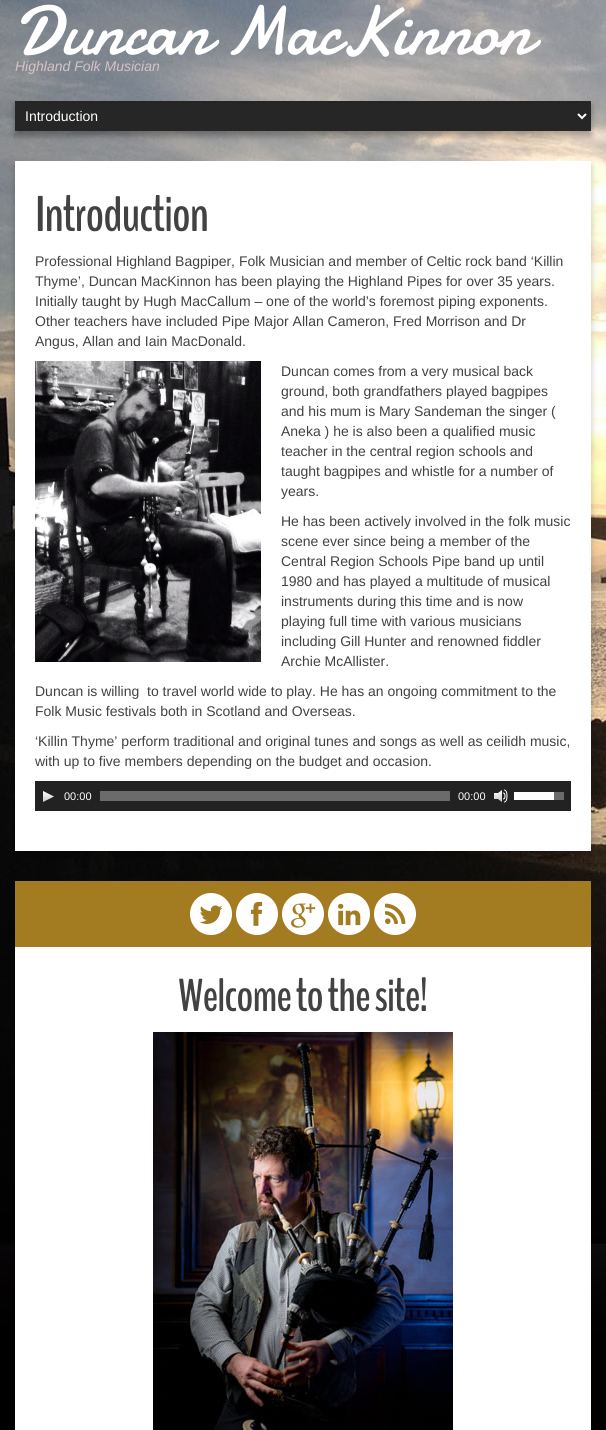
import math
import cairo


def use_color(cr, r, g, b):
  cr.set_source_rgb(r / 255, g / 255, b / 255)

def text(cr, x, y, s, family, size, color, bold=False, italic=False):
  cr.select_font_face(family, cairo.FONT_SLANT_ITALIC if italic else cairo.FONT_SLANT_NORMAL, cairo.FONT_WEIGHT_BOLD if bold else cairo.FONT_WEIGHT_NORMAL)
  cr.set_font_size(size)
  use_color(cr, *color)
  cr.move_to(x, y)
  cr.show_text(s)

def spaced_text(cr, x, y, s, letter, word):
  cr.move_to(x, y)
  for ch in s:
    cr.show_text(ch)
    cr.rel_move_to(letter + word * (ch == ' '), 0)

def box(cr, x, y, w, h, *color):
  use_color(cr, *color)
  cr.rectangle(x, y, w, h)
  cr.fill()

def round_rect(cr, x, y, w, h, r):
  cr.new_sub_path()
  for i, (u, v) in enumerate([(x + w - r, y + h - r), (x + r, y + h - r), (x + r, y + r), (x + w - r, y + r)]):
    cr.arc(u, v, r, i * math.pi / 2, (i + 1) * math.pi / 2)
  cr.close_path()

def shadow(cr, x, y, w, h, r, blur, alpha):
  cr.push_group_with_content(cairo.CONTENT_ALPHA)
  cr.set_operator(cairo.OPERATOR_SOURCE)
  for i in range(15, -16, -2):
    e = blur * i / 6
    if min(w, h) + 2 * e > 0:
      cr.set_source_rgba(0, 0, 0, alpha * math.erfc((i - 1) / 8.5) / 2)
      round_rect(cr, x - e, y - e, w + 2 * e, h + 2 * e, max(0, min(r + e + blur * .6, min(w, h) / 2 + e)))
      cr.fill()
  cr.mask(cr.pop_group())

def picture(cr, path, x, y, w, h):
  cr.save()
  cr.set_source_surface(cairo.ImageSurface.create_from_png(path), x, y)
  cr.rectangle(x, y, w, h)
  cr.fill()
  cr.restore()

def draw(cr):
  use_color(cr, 255, 255, 255)
  cr.paint()
  picture(cr, "img_01.png", 0, 0, 606, 1430)
  use_color(cr, 0, 0, 0)
  shadow(cr, 15, 106, 576, 30, 0, 3.5, 0.33)
  box(cr, 15, 101, 576, 30, 38, 38, 38)
  box(cr, 16, 102, 574, 1, 35, 35, 35)
  cr.new_path()
  cr.move_to(578, 114)
  cr.line_to(582, 118)
  cr.line_to(586, 114)
  use_color(cr, 255, 255, 255)
  cr.stroke()
  use_color(cr, 0, 0, 0)
  shadow(cr, 15, 166, 576, 690, 0, 3.5, 0.22)
  box(cr, 15, 161, 576, 690, 255, 255, 255)
  picture(cr, "img_02.png", 35, 361, 226, 301)
  box(cr, 35, 781, 536, 30, 34, 34, 34)
  picture(cr, "img_03.png", 43, 791, 11, 11)
  box(cr, 100, 791, 350, 10, 107, 107, 107)
  picture(cr, "img_04.png", 494, 789, 14, 14)
  box(cr, 514, 792, 40, 8, 255, 255, 255)
  box(cr, 554, 792, 10, 8, 107, 107, 107)
  box(cr, 15, 881, 576, 66, 163, 124, 34)
  use_color(cr, 255, 255, 255)
  cr.arc(211, 914, 21, 0, 2 * math.pi)
  cr.fill()
  picture(cr, "img_05.png", 199, 905, 24, 19)
  cr.arc(257, 914, 21, 0, 2 * math.pi)
  cr.fill()
  picture(cr, "img_06.png", 251, 901, 12, 25)
  cr.arc(303, 914, 21, 0, 2 * math.pi)
  cr.fill()
  picture(cr, "img_07.png", 291, 903, 25, 25)
  cr.arc(349, 914, 21, 0, 2 * math.pi)
  cr.fill()
  picture(cr, "img_08.png", 338, 903, 23, 23)
  cr.arc(395, 914, 21, 0, 2 * math.pi)
  cr.fill()
  picture(cr, "img_09.png", 385, 903, 21, 21)
  box(cr, 15, 947, 576, 483, 255, 255, 255)
  picture(cr, "img_10.png", 153, 1032, 300, 398)
  cr.select_font_face("Damion")
  cr.set_font_size(70)
  spaced_text(cr, 15, 54, "Duncan MacKinnon", -1, 0)
  text(cr, 15, 71, "Highland Folk Musician", "Liberation Sans", 14, (215, 193, 198), italic=True)
  text(cr, 25, 121, "Introduction", "Liberation Sans", 14, (255, 255, 255))
  cr.select_font_face("BenchNine", cairo.FONT_SLANT_NORMAL, cairo.FONT_WEIGHT_BOLD)
  cr.set_font_size(50)
  use_color(cr, 67, 66, 66)
  spaced_text(cr, 35, 231, "Introduction", -1, 0)
  text(cr, 35, 266, "Professional Highland Bagpiper, Folk Musician and member of Celtic rock band ‘Killin", "Liberation Sans", 14, (67, 66, 66))
  text(cr, 35, 286, "Thyme’, Duncan MacKinnon has been playing the Highland Pipes for over 35 years.", "Liberation Sans", 14, (67, 66, 66))
  text(cr, 35, 306, "Initially taught by Hugh MacCallum – one of the world’s foremost piping exponents.", "Liberation Sans", 14, (67, 66, 66))
  text(cr, 35, 326, "Other teachers have included Pipe Major Allan Cameron, Fred Morrison and Dr", "Liberation Sans", 14, (67, 66, 66))
  text(cr, 35, 346, "Angus, Allan and Iain MacDonald.", "Liberation Sans", 14, (67, 66, 66))
  text(cr, 281, 376, "Duncan comes from a very musical back", "Liberation Sans", 14, (67, 66, 66))
  text(cr, 281, 396, "ground, both grandfathers played bagpipes", "Liberation Sans", 14, (67, 66, 66))
  text(cr, 281, 416, "and his mum is Mary Sandeman the singer (", "Liberation Sans", 14, (67, 66, 66))
  text(cr, 281, 436, "Aneka ) he is also been a qualified music", "Liberation Sans", 14, (67, 66, 66))
  text(cr, 281, 456, "teacher in the central region schools and", "Liberation Sans", 14, (67, 66, 66))
  text(cr, 281, 476, "taught bagpipes and whistle for a number of", "Liberation Sans", 14, (67, 66, 66))
  text(cr, 281, 496, "years.", "Liberation Sans", 14, (67, 66, 66))
  text(cr, 281, 526, "He has been actively involved in the folk music", "Liberation Sans", 14, (67, 66, 66))
  text(cr, 281, 546, "scene ever since being a member of the", "Liberation Sans", 14, (67, 66, 66))
  text(cr, 281, 566, "Central Region Schools Pipe band up until", "Liberation Sans", 14, (67, 66, 66))
  text(cr, 281, 586, "1980 and has played a multitude of musical", "Liberation Sans", 14, (67, 66, 66))
  text(cr, 281, 606, "instruments during this time and is now", "Liberation Sans", 14, (67, 66, 66))
  text(cr, 281, 626, "playing full time with various musicians", "Liberation Sans", 14, (67, 66, 66))
  text(cr, 281, 646, "including Gill Hunter and renowned fiddler", "Liberation Sans", 14, (67, 66, 66))
  text(cr, 281, 666, "Archie McAllister.", "Liberation Sans", 14, (67, 66, 66))
  text(cr, 35, 696, "Duncan is willing  to travel world wide to play. He has an ongoing commitment to the", "Liberation Sans", 14, (67, 66, 66))
  text(cr, 35, 716, "Folk Music festivals both in Scotland and Overseas.", "Liberation Sans", 14, (67, 66, 66))
  text(cr, 35, 746, "‘Killin Thyme’ perform traditional and original tunes and songs as well as ceilidh music,", "Liberation Sans", 14, (67, 66, 66))
  text(cr, 35, 766, "with up to five members depending on the budget and occasion.", "Liberation Sans", 14, (67, 66, 66))
  text(cr, 64, 800, "00:00", "Liberation Sans", 11, (255, 255, 255))
  text(cr, 458, 800, "00:00", "Liberation Sans", 11, (255, 255, 255))
  cr.select_font_face("BenchNine", cairo.FONT_SLANT_NORMAL, cairo.FONT_WEIGHT_BOLD)
  cr.set_font_size(46)
  use_color(cr, 67, 66, 66)
  spaced_text(cr, 178, 1011, "Welcome to the site!", -1, 0)


surface = cairo.ImageSurface(cairo.FORMAT_RGB24, 606, 1430)
cr = cairo.Context(surface)
options = cairo.FontOptions()
options.set_hint_metrics(cairo.HINT_METRICS_OFF)
options.set_hint_style(cairo.HINT_STYLE_NONE)
cr.set_font_options(options)
cr.set_miter_limit(4)
draw(cr)
surface.write_to_png("out.png")
